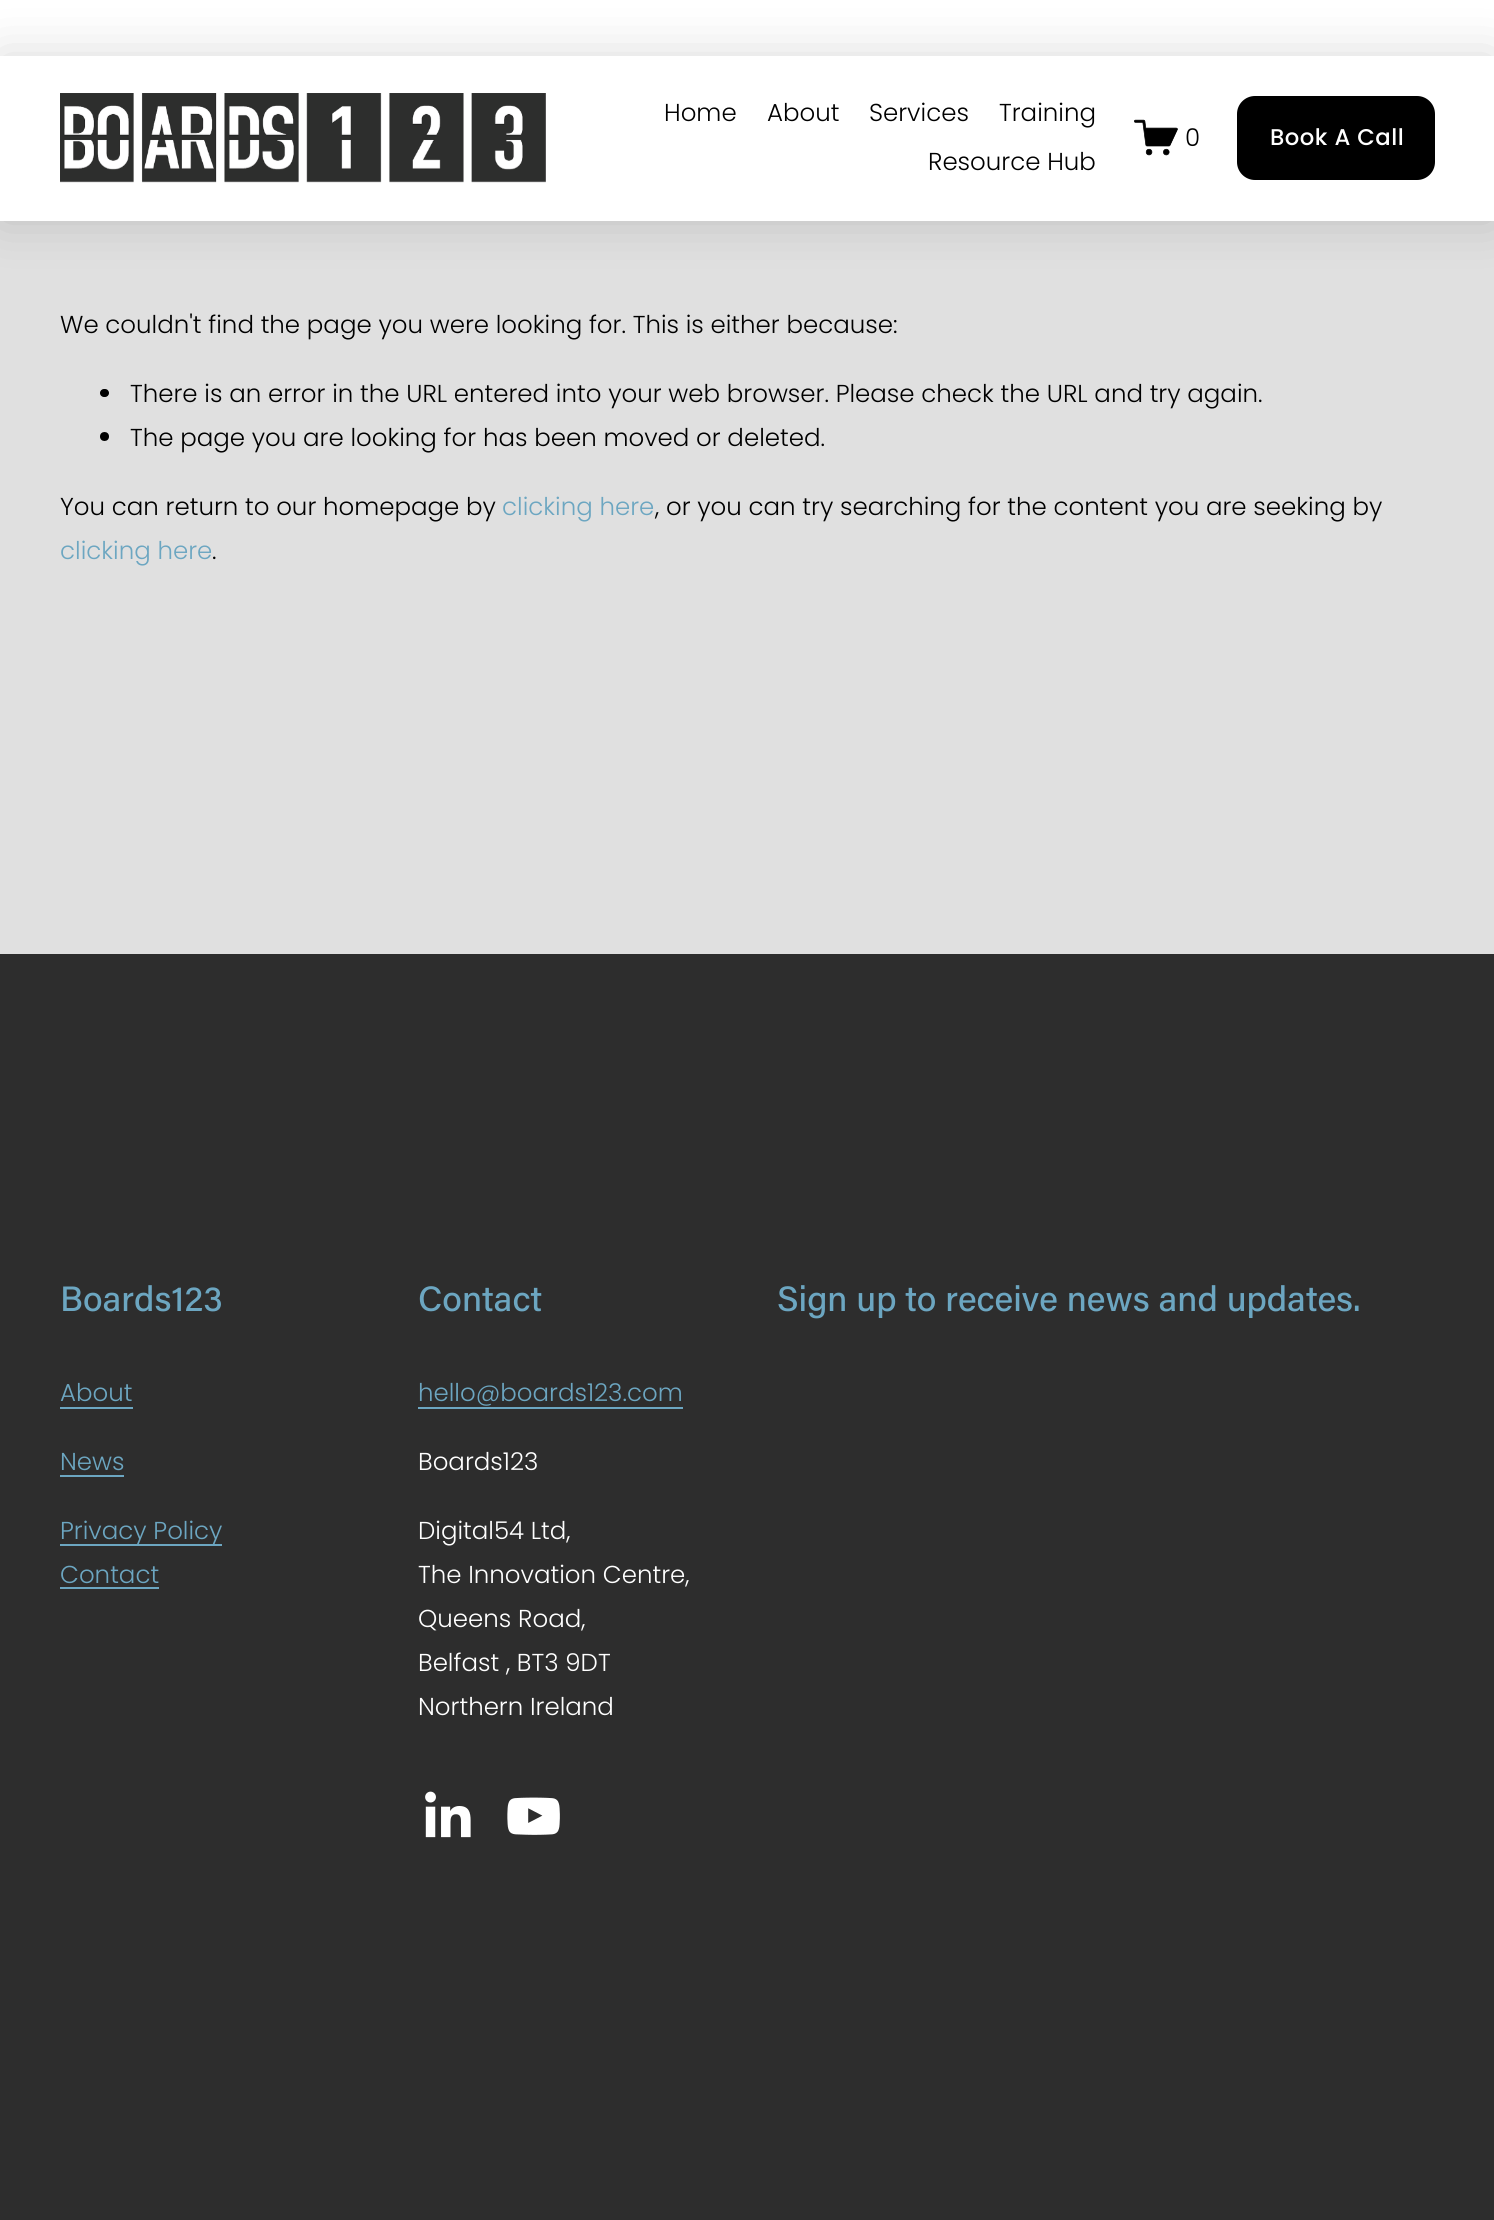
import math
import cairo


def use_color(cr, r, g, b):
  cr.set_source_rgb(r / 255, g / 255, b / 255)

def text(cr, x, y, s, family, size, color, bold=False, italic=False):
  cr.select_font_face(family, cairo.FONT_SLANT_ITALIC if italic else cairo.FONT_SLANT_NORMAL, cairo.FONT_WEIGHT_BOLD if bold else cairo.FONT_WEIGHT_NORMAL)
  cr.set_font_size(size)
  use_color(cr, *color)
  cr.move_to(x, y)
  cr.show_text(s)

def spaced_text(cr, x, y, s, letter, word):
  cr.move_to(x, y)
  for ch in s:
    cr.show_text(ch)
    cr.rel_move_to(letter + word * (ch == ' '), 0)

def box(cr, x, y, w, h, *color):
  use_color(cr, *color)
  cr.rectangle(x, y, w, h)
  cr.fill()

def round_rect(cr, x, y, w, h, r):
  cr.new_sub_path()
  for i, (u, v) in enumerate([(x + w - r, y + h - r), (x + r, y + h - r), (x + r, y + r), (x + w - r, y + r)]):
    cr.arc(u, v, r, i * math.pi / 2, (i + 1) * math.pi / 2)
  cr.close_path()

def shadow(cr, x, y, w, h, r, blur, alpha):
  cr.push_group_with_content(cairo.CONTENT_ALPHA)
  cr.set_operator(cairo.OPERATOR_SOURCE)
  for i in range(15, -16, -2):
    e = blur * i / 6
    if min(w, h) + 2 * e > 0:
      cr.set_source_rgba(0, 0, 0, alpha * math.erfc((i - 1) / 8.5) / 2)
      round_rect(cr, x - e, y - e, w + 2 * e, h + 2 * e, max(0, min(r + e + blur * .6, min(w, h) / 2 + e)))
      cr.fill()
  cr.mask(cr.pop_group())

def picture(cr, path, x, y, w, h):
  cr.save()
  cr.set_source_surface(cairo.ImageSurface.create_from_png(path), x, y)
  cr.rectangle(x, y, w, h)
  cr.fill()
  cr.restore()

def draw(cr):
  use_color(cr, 224, 224, 224)
  cr.paint()
  box(cr, 0, 0, 1494, 221, 255, 255, 255)
  cr.save()
  cr.set_fill_rule(cairo.FILL_RULE_EVEN_ODD)
  cr.new_path()
  cr.move_to(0, 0)
  cr.line_to(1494, 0)
  cr.line_to(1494, 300)
  cr.line_to(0, 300)
  cr.close_path()
  cr.move_to(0, 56)
  cr.line_to(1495, 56)
  cr.line_to(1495, 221)
  cr.line_to(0, 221)
  cr.close_path()
  cr.clip()
  use_color(cr, 0, 0, 0)
  shadow(cr, 0, 56, 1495, 165, 0, 26, 0.15)
  cr.restore()
  picture(cr, "img_01.png", 60, 93, 486, 90)
  picture(cr, "img_02.png", 1134, 119, 44, 37)
  use_color(cr, 0, 0, 0)
  round_rect(cr, 1237, 96, 198, 84, 18)
  cr.fill()
  round_rect(cr, 100, 389, 9, 8, 4)
  cr.fill()
  cr.arc(104.5, 436.5, 4.5, 0, 2 * math.pi)
  cr.fill()
  box(cr, 0, 954, 1494, 1266, 45, 45, 45)
  box(cr, 60, 1407, 73, 2, 108, 166, 193)
  box(cr, 60, 1475, 64, 2, 108, 166, 193)
  box(cr, 60, 1544, 162, 2, 108, 166, 193)
  box(cr, 60, 1587, 99, 2, 108, 166, 193)
  box(cr, 418, 1407, 265, 2, 108, 166, 193)
  picture(cr, "img_03.png", 425, 1791, 46, 47)
  picture(cr, "img_04.png", 507, 1797, 53, 38)
  text(cr, 664, 121, "Home", "Poppins Light", 24.5, (0, 0, 0))
  text(cr, 767, 121, "About", "Poppins Light", 24.5, (0, 0, 0))
  text(cr, 869, 121, "Services", "Poppins Light", 24.5, (0, 0, 0))
  text(cr, 999, 121, "Training", "Poppins Light", 24.5, (0, 0, 0))
  text(cr, 928, 170, "Resource Hub", "Poppins Light", 24.5, (0, 0, 0))
  text(cr, 1185, 146, "0", "Poppins Light", 24.5, (0, 0, 0))
  cr.select_font_face("Poppins Medium")
  cr.set_font_size(22.75)
  use_color(cr, 255, 255, 255)
  spaced_text(cr, 1270, 145, "Book A Call", 0.5, 0)
  text(cr, 60, 333, "We couldn't find the page you were looking for. This is either because:", "Poppins Light", 24.5, (0, 0, 0))
  text(cr, 130, 402, "There is an error in the URL entered into your web browser. Please check the URL and try again.", "Poppins Light", 24.5, (0, 0, 0))
  text(cr, 130, 446, "The page you are looking for has been moved or deleted.", "Poppins Light", 24.5, (0, 0, 0))
  text(cr, 60, 515, "You can return to our homepage by", "Poppins Light", 24.5, (0, 0, 0))
  text(cr, 502, 515, "clicking here", "Poppins Light", 24.5, (108, 166, 193))
  text(cr, 655, 515, ", or you can try searching for the content you are seeking by", "Poppins Light", 24.5, (0, 0, 0))
  text(cr, 60, 559, "clicking here", "Poppins Light", 24.5, (108, 166, 193))
  text(cr, 212, 559, ".", "Poppins Light", 24.5, (0, 0, 0))
  text(cr, 60, 1311, "Boards123", "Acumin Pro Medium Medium", 35.25, (108, 166, 193))
  text(cr, 60, 1401, "About", "Poppins Light", 24.5, (108, 166, 193))
  text(cr, 60, 1470, "News", "Poppins Light", 24.5, (108, 166, 193))
  text(cr, 60, 1539, "Privacy Policy", "Poppins Light", 24.5, (108, 166, 193))
  text(cr, 60, 1583, "Contact", "Poppins Light", 24.5, (108, 166, 193))
  text(cr, 418, 1311, "Contact", "Acumin Pro Medium Medium", 35.25, (108, 166, 193))
  text(cr, 418, 1401, "hello@boards123.com", "Poppins Light", 24.5, (108, 166, 193))
  text(cr, 418, 1470, "Boards123", "Poppins Light", 24.5, (255, 255, 255))
  text(cr, 418, 1539, "Digital54 Ltd,", "Poppins Light", 24.5, (255, 255, 255))
  text(cr, 418, 1583, "The Innovation Centre,", "Poppins Light", 24.5, (255, 255, 255))
  text(cr, 418, 1627, "Queens Road,", "Poppins Light", 24.5, (255, 255, 255))
  text(cr, 418, 1671, "Belfast , BT3 9DT", "Poppins Light", 24.5, (255, 255, 255))
  text(cr, 418, 1715, "Northern Ireland", "Poppins Light", 24.5, (255, 255, 255))
  text(cr, 777, 1311, "Sign up to receive news and updates.", "Acumin Pro Medium Medium", 35.25, (108, 166, 193))


surface = cairo.ImageSurface(cairo.FORMAT_RGB24, 1494, 2220)
cr = cairo.Context(surface)
options = cairo.FontOptions()
options.set_hint_metrics(cairo.HINT_METRICS_OFF)
options.set_hint_style(cairo.HINT_STYLE_NONE)
cr.set_font_options(options)
cr.set_miter_limit(4)
draw(cr)
surface.write_to_png("out.png")
